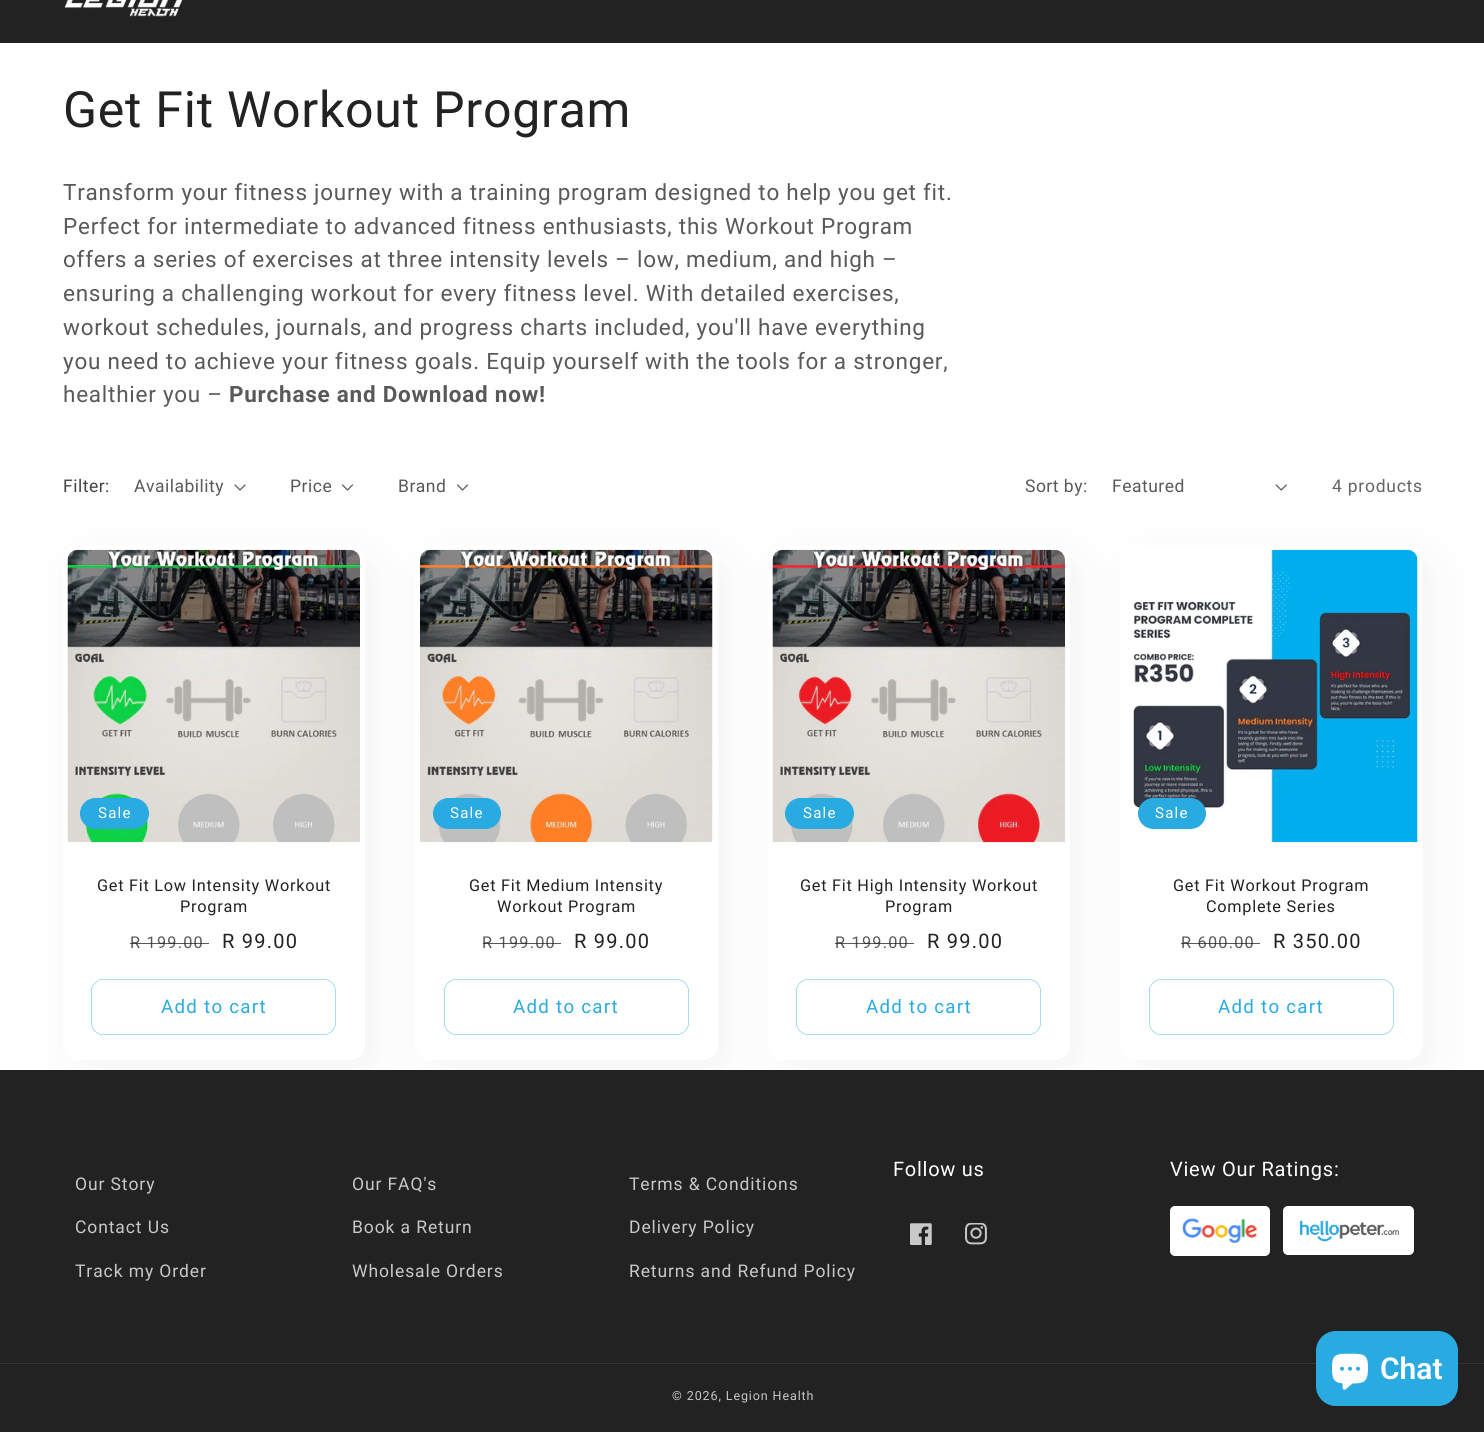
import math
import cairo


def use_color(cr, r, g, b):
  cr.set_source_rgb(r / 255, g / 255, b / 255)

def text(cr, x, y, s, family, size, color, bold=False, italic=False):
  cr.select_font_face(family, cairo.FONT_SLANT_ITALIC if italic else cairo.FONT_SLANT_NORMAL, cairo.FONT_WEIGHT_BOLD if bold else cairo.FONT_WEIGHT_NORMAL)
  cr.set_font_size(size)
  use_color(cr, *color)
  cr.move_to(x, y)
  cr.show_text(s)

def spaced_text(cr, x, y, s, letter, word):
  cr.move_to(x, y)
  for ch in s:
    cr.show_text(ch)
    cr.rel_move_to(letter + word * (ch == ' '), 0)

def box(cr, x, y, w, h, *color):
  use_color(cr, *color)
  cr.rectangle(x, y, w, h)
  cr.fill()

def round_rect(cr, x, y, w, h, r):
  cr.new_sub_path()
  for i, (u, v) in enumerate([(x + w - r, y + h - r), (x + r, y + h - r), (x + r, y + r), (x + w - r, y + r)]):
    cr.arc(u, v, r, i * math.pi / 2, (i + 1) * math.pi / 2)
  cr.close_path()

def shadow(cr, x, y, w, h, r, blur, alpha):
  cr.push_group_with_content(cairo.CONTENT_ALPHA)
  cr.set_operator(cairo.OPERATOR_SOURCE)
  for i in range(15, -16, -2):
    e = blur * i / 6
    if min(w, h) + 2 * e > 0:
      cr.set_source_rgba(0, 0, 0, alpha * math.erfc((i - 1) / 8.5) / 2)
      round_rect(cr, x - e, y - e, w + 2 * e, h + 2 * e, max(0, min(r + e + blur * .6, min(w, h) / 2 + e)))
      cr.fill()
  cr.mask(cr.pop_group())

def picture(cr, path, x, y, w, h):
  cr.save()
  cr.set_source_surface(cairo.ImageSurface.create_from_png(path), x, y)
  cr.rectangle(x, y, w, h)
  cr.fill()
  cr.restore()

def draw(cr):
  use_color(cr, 255, 255, 255)
  cr.paint()
  box(cr, 0, 0, 1484, 43, 34, 34, 34)
  picture(cr, "img_01.png", 64, 0, 119, 17)
  picture(cr, "img_02.png", 234, 484, 12, 7)
  picture(cr, "img_03.png", 342, 484, 11, 7)
  picture(cr, "img_03.png", 457, 484, 11, 7)
  picture(cr, "img_04.png", 1275, 484, 12, 7)
  use_color(cr, 34, 34, 34)
  shadow(cr, 75, 558, 303, 515, 15, 22, 0.05)
  shadow(cr, 428, 558, 302, 515, 15, 22, 0.05)
  use_color(cr, 255, 255, 255)
  round_rect(cr, 63, 545, 302, 515, 15)
  cr.fill()
  picture(cr, "img_05.png", 67, 549, 293, 294)
  use_color(cr, 41, 171, 226)
  round_rect(cr, 80.5, 798.5, 68, 30, 15)
  cr.fill_preserve()
  cr.set_line_width(1)
  cr.stroke()
  round_rect(cr, 91.2, 979.2, 244.6, 55.6, 12.8)
  cr.set_line_width(0.4)
  cr.stroke()
  use_color(cr, 34, 34, 34)
  shadow(cr, 780, 558, 303, 515, 15, 22, 0.05)
  use_color(cr, 255, 255, 255)
  round_rect(cr, 415, 545, 303, 515, 15)
  cr.fill()
  picture(cr, "img_06.png", 420, 549, 293, 294)
  use_color(cr, 41, 171, 226)
  round_rect(cr, 433.5, 798.5, 67, 30, 15)
  cr.fill_preserve()
  cr.set_line_width(1)
  cr.stroke()
  round_rect(cr, 444.2, 979.2, 244.6, 55.6, 12.8)
  cr.set_line_width(0.4)
  cr.stroke()
  use_color(cr, 34, 34, 34)
  shadow(cr, 1133, 558, 302, 515, 15, 22, 0.05)
  use_color(cr, 255, 255, 255)
  round_rect(cr, 768, 545, 302, 515, 15)
  cr.fill()
  picture(cr, "img_07.png", 772, 549, 293, 294)
  use_color(cr, 41, 171, 226)
  round_rect(cr, 785.5, 798.5, 68, 30, 15)
  cr.fill_preserve()
  cr.set_line_width(1)
  cr.stroke()
  round_rect(cr, 796.2, 979.2, 244.6, 55.6, 12.8)
  cr.set_line_width(0.4)
  cr.stroke()
  use_color(cr, 255, 255, 255)
  round_rect(cr, 1120, 545, 303, 515, 15)
  cr.fill()
  picture(cr, "img_08.png", 1131, 549, 287, 294)
  use_color(cr, 41, 171, 226)
  round_rect(cr, 1138.5, 798.5, 67, 30, 15)
  cr.fill_preserve()
  cr.set_line_width(1)
  cr.stroke()
  round_rect(cr, 1149.2, 979.2, 244.6, 55.6, 12.8)
  cr.set_line_width(0.4)
  cr.stroke()
  box(cr, 0, 1070, 1484, 362, 34, 34, 34)
  picture(cr, "img_09.png", 910, 1223, 22, 22)
  picture(cr, "img_10.png", 965, 1223, 22, 22)
  use_color(cr, 255, 255, 255)
  round_rect(cr, 1170, 1206, 100, 50, 5)
  cr.fill()
  picture(cr, "img_11.png", 1182, 1218, 76, 26)
  round_rect(cr, 1283, 1206, 131, 49, 5)
  cr.fill()
  picture(cr, "img_12.png", 1299, 1220, 100, 22)
  box(cr, 0, 1363, 1484, 1, 52, 52, 52)
  use_color(cr, 41, 171, 226)
  round_rect(cr, 1316, 1331, 142, 75, 20)
  cr.fill()
  picture(cr, "img_13.png", 1332, 1353, 36, 37)
  cr.select_font_face("Roboto")
  cr.set_font_size(50)
  use_color(cr, 34, 34, 34)
  spaced_text(cr, 63, 127, "Get Fit Workout Program", 0.75, 0)
  cr.set_font_size(22.5)
  use_color(cr, 89, 89, 89)
  spaced_text(cr, 63, 200, "Transform your fitness journey with a training program designed to help you get fit.", 0.75, 0)
  spaced_text(cr, 63, 234, "Perfect for intermediate to advanced fitness enthusiasts, this Workout Program", 0.75, 0)
  spaced_text(cr, 63, 267, "offers a series of exercises at three intensity levels – low, medium, and high –", 0.75, 0)
  spaced_text(cr, 63, 301, "ensuring a challenging workout for every fitness level. With detailed exercises,", 0.75, 0)
  spaced_text(cr, 63, 335, "workout schedules, journals, and progress charts included, you'll have everything", 0.75, 0)
  spaced_text(cr, 63, 369, "you need to achieve your fitness goals. Equip yourself with the tools for a stronger,", 0.75, 0)
  spaced_text(cr, 63, 402, "healthier you –", 0.75, 0)
  cr.select_font_face("Roboto", cairo.FONT_SLANT_NORMAL, cairo.FONT_WEIGHT_BOLD)
  spaced_text(cr, 229, 402, "Purchase and Download now!", 0.75, 0)
  cr.select_font_face("Roboto")
  cr.set_font_size(17.5)
  use_color(cr, 67, 67, 67)
  spaced_text(cr, 63, 492, "Filter:", 0.5, 0)
  use_color(cr, 89, 89, 89)
  spaced_text(cr, 134, 492, "Availability", 0.5, 0)
  spaced_text(cr, 290, 492, "Price", 0.5, 0)
  spaced_text(cr, 398, 492, "Brand", 0.5, 0)
  spaced_text(cr, 1025, 492, "Sort by:", 0.5, 0)
  spaced_text(cr, 1112, 492, "Featured", 0.5, 0)
  use_color(cr, 100, 100, 100)
  spaced_text(cr, 1332, 492, "4 products", 0.75, 0)
  cr.set_font_size(15)
  use_color(cr, 255, 255, 255)
  spaced_text(cr, 98, 818, "Sale", 1.25, 0)
  cr.set_font_size(16.25)
  use_color(cr, 34, 34, 34)
  spaced_text(cr, 97, 891, "Get Fit Low Intensity Workout", 0.75, 0)
  spaced_text(cr, 180, 912, "Program", 0.75, 0)
  use_color(cr, 89, 89, 89)
  spaced_text(cr, 130, 948, "R 199.00", 1.25, 0)
  cr.set_source_rgba(0.133, 0.133, 0.133, 0.75)
  cr.rectangle(130, 943, 79, 1)
  cr.fill()
  cr.set_font_size(20)
  use_color(cr, 34, 34, 34)
  spaced_text(cr, 222, 948, "R 99.00", 1.25, 0)
  cr.set_font_size(18.75)
  use_color(cr, 41, 171, 226)
  spaced_text(cr, 161, 1013, "Add to cart", 1.25, 0)
  cr.set_font_size(15)
  use_color(cr, 255, 255, 255)
  spaced_text(cr, 450, 818, "Sale", 1.25, 0)
  cr.set_font_size(16.25)
  use_color(cr, 34, 34, 34)
  spaced_text(cr, 469, 891, "Get Fit Medium Intensity", 0.75, 0)
  spaced_text(cr, 497, 912, "Workout Program", 0.75, 0)
  use_color(cr, 89, 89, 89)
  spaced_text(cr, 482, 948, "R 199.00", 1.25, 0)
  cr.set_source_rgba(0.133, 0.133, 0.133, 0.75)
  cr.rectangle(483, 943, 78, 1)
  cr.fill()
  cr.set_font_size(20)
  use_color(cr, 34, 34, 34)
  spaced_text(cr, 574, 948, "R 99.00", 1.25, 0)
  cr.set_font_size(18.75)
  use_color(cr, 41, 171, 226)
  spaced_text(cr, 513, 1013, "Add to cart", 1.25, 0)
  cr.set_font_size(15)
  use_color(cr, 255, 255, 255)
  spaced_text(cr, 803, 818, "Sale", 1.25, 0)
  cr.set_font_size(16.25)
  use_color(cr, 34, 34, 34)
  spaced_text(cr, 800, 891, "Get Fit High Intensity Workout", 0.75, 0)
  spaced_text(cr, 885, 912, "Program", 0.75, 0)
  use_color(cr, 89, 89, 89)
  spaced_text(cr, 835, 948, "R 199.00", 1.25, 0)
  cr.set_source_rgba(0.133, 0.133, 0.133, 0.75)
  cr.rectangle(835, 943, 79, 1)
  cr.fill()
  cr.set_font_size(20)
  use_color(cr, 34, 34, 34)
  spaced_text(cr, 927, 948, "R 99.00", 1.25, 0)
  cr.set_font_size(18.75)
  use_color(cr, 41, 171, 226)
  spaced_text(cr, 866, 1013, "Add to cart", 1.25, 0)
  cr.set_font_size(15)
  use_color(cr, 255, 255, 255)
  spaced_text(cr, 1155, 818, "Sale", 1.25, 0)
  cr.set_font_size(16.25)
  use_color(cr, 34, 34, 34)
  spaced_text(cr, 1173, 891, "Get Fit Workout Program", 0.75, 0)
  spaced_text(cr, 1206, 912, "Complete Series", 0.75, 0)
  use_color(cr, 89, 89, 89)
  spaced_text(cr, 1181, 948, "R 600.00", 1.25, 0)
  cr.set_source_rgba(0.133, 0.133, 0.133, 0.75)
  cr.rectangle(1181, 943, 79, 1)
  cr.fill()
  cr.set_font_size(20)
  use_color(cr, 34, 34, 34)
  spaced_text(cr, 1273, 948, "R 350.00", 1.25, 0)
  cr.set_font_size(18.75)
  use_color(cr, 41, 171, 226)
  spaced_text(cr, 1218, 1013, "Add to cart", 1.25, 0)
  cr.set_font_size(20)
  use_color(cr, 255, 255, 255)
  spaced_text(cr, 893, 1176, "Follow us", 0.75, 0)
  spaced_text(cr, 1170, 1176, "View Our Ratings:", 0.75, 0)
  cr.set_font_size(17.5)
  use_color(cr, 200, 200, 200)
  spaced_text(cr, 75, 1190, "Our Story", 0.9, 0)
  spaced_text(cr, 75, 1233, "Contact Us", 0.9, 0)
  spaced_text(cr, 75, 1277, "Track my Order", 0.9, 0)
  spaced_text(cr, 352, 1190, "Our FAQ's", 0.9, 0)
  spaced_text(cr, 352, 1233, "Book a Return", 0.9, 0)
  spaced_text(cr, 352, 1277, "Wholesale Orders", 0.9, 0)
  spaced_text(cr, 629, 1190, "Terms & Conditions", 0.9, 0)
  spaced_text(cr, 629, 1233, "Delivery Policy", 0.9, 0)
  spaced_text(cr, 629, 1277, "Returns and Refund Policy", 0.9, 0)
  cr.set_font_size(12.5)
  spaced_text(cr, 672, 1400, "© 2026, Legion Health", 0.9, 0)
  text(cr, 1380, 1379, "Chat", "Roboto SemiBold", 30, (255, 255, 255))


surface = cairo.ImageSurface(cairo.FORMAT_RGB24, 1484, 1432)
cr = cairo.Context(surface)
options = cairo.FontOptions()
options.set_hint_metrics(cairo.HINT_METRICS_OFF)
options.set_hint_style(cairo.HINT_STYLE_NONE)
cr.set_font_options(options)
cr.set_miter_limit(4)
draw(cr)
surface.write_to_png("out.png")
